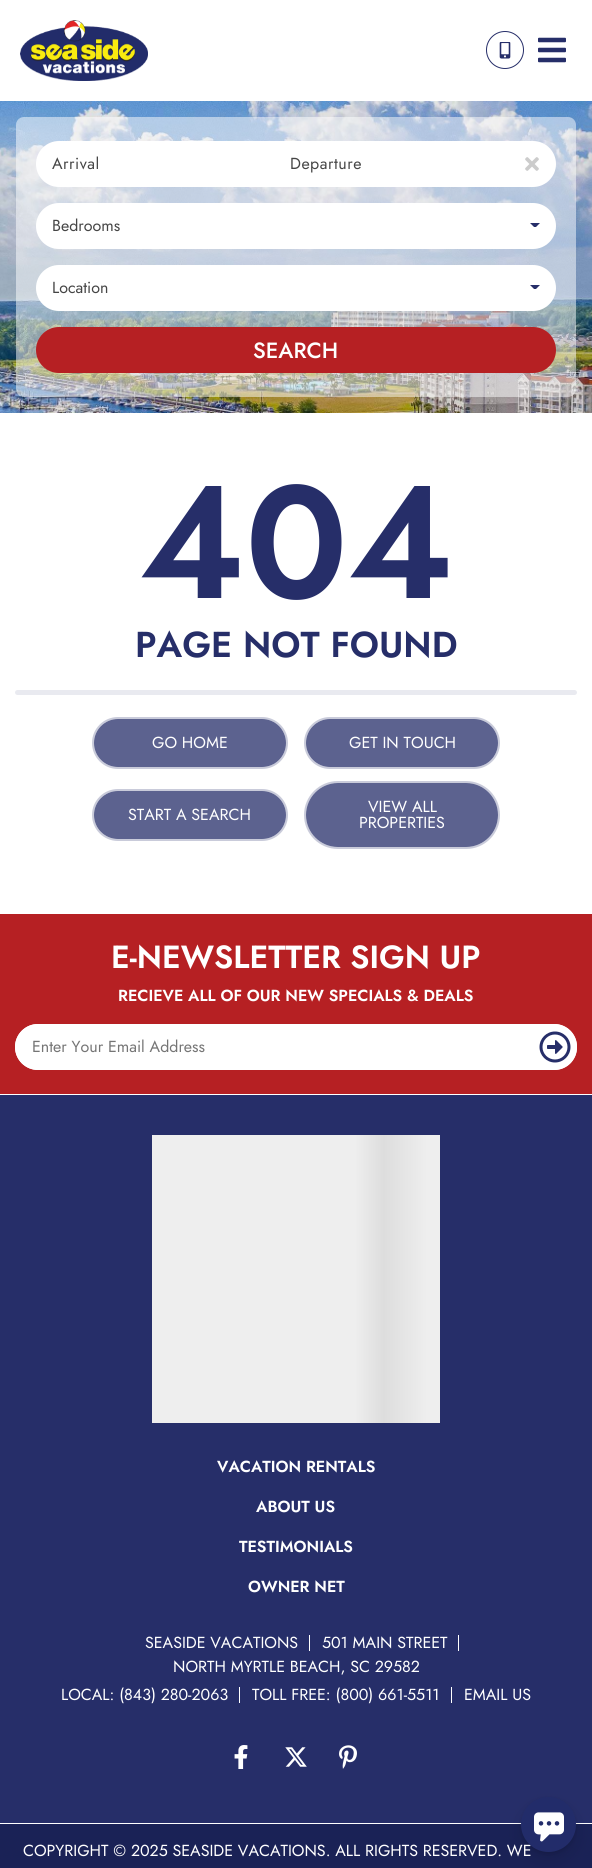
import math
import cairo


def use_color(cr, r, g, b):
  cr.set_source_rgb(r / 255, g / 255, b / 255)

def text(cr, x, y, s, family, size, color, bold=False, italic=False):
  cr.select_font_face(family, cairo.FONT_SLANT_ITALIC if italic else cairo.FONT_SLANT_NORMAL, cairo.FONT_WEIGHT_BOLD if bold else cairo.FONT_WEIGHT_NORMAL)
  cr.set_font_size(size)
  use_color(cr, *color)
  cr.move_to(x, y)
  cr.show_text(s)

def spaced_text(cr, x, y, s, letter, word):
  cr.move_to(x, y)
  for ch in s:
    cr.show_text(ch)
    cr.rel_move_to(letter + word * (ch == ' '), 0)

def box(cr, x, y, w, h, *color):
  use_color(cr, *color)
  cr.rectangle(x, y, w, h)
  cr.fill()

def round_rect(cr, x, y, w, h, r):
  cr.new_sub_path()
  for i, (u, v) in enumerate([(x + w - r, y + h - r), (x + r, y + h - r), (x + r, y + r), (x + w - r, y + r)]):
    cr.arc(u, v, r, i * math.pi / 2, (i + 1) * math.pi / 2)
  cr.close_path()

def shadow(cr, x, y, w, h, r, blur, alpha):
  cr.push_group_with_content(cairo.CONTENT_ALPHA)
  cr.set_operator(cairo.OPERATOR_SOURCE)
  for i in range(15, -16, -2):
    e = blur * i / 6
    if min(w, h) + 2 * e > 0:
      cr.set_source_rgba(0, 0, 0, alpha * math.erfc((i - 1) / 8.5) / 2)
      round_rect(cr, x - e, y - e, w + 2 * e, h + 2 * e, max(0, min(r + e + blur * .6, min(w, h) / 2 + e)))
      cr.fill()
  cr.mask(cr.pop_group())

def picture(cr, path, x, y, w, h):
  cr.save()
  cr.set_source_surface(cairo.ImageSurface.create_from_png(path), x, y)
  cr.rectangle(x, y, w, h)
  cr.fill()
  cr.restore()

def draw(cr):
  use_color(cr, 255, 255, 255)
  cr.paint()
  picture(cr, "img_01.png", 20, 20, 128, 61)
  cr.arc(505, 50, 18.5, 0, 2 * math.pi)
  use_color(cr, 38, 46, 105)
  cr.set_line_width(1)
  cr.stroke()
  picture(cr, "img_02.png", 499, 42, 12, 17)
  picture(cr, "img_03.png", 538, 37, 28, 26)
  picture(cr, "img_04.png", 0, 101, 592, 312)
  cr.set_source_rgba(1, 1, 1, 0.5)
  round_rect(cr, 16, 117, 560, 280, 8)
  cr.fill()
  use_color(cr, 255, 255, 255)
  round_rect(cr, 36, 141, 520, 46, 23)
  cr.fill()
  picture(cr, "img_05.png", 525, 157, 14, 14)
  round_rect(cr, 36, 203, 520, 46, 23)
  cr.fill()
  use_color(cr, 38, 46, 105)
  cr.new_path()
  cr.move_to(530, 223)
  cr.line_to(540, 223)
  cr.line_to(536, 227)
  cr.line_to(534, 227)
  cr.close_path()
  cr.fill()
  use_color(cr, 255, 255, 255)
  round_rect(cr, 36, 265, 520, 46, 23)
  cr.fill()
  use_color(cr, 38, 46, 105)
  cr.new_path()
  cr.move_to(530, 285)
  cr.line_to(540, 285)
  cr.line_to(536, 289)
  cr.line_to(534, 289)
  cr.close_path()
  cr.fill()
  use_color(cr, 182, 32, 35)
  round_rect(cr, 36, 327, 520, 46, 23)
  cr.fill()
  use_color(cr, 233, 234, 240)
  round_rect(cr, 15, 690, 562, 5, 2.5)
  cr.fill()
  round_rect(cr, 93, 718, 194, 50, 25)
  use_color(cr, 201, 203, 218)
  cr.set_line_width(2)
  cr.stroke()
  cr.set_source_rgba(0.149, 0.18, 0.412, 0.75)
  round_rect(cr, 94, 719, 192, 48, 24)
  cr.fill()
  round_rect(cr, 305, 718, 194, 50, 25)
  use_color(cr, 201, 203, 218)
  cr.stroke()
  cr.set_source_rgba(0.149, 0.18, 0.412, 0.75)
  round_rect(cr, 306, 719, 192, 48, 24)
  cr.fill()
  round_rect(cr, 93, 790, 194, 50, 25)
  use_color(cr, 201, 203, 218)
  cr.stroke()
  cr.set_source_rgba(0.149, 0.18, 0.412, 0.75)
  round_rect(cr, 94, 791, 192, 48, 24)
  cr.fill()
  round_rect(cr, 305, 782, 194, 66, 33)
  use_color(cr, 201, 203, 218)
  cr.stroke()
  cr.set_source_rgba(0.149, 0.18, 0.412, 0.75)
  round_rect(cr, 306, 783, 192, 64, 32)
  cr.fill()
  box(cr, 0, 914, 592, 180, 182, 32, 35)
  use_color(cr, 255, 255, 255)
  round_rect(cr, 15, 1024, 562, 46, 23)
  cr.fill()
  round_rect(cr, 15.5, 1024.5, 516, 45, 22.5)
  cr.set_line_width(1)
  cr.stroke()
  round_rect(cr, 532, 1024, 45, 46, 22.5)
  cr.fill()
  picture(cr, "img_06.png", 539, 1031, 32, 32)
  box(cr, 0, 1095, 592, 728, 38, 46, 105)
  gradient = cairo.LinearGradient(44, 1279, 332, 1279)
  gradient.add_color_stop_rgba(0.08, 0.933, 0.933, 0.933, 1)
  gradient.add_color_stop_rgba(0.18, 0.867, 0.867, 0.867, 1)
  gradient.add_color_stop_rgba(0.33, 0.933, 0.933, 0.933, 1)
  cr.set_source(gradient)
  cr.rectangle(152, 1135, 180, 288)
  cr.fill()
  gradient = cairo.LinearGradient(332, 1279, 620, 1279)
  gradient.add_color_stop_rgba(0.08, 0.933, 0.933, 0.933, 1)
  gradient.add_color_stop_rgba(0.18, 0.867, 0.867, 0.867, 1)
  gradient.add_color_stop_rgba(0.33, 0.933, 0.933, 0.933, 1)
  cr.set_source(gradient)
  cr.rectangle(332, 1135, 108, 288)
  cr.fill()
  box(cr, 309, 1635, 1, 16, 255, 255, 255)
  box(cr, 458, 1635, 1, 16, 255, 255, 255)
  box(cr, 239, 1687, 1, 16, 255, 255, 255)
  box(cr, 451, 1687, 1, 16, 255, 255, 255)
  picture(cr, "img_07.png", 234, 1745, 14, 24)
  picture(cr, "img_08.png", 285, 1747, 22, 20)
  picture(cr, "img_09.png", 339, 1745, 18, 24)
  box(cr, 0, 1824, 592, 44, 26, 34, 86)
  use_color(cr, 0, 0, 0)
  shadow(cr, 521, 1805, 55, 55, 27.5, 8, 0.1)
  shadow(cr, 521, 1799, 55, 55, 27.5, 2, 0.1)
  cr.select_font_face("Jost")
  cr.set_font_size(16)
  use_color(cr, 69, 69, 69)
  spaced_text(cr, 52, 169, "Arrival", 0.5, 0)
  spaced_text(cr, 290, 169, "Departure", 0.5, 0)
  text(cr, 52, 231, "Bedrooms", "Jost", 16, (69, 69, 69))
  text(cr, 52, 293, "Location", "Jost", 16, (69, 69, 69))
  text(cr, 253, 358, "SEARCH", "Jost Medium", 22, (255, 255, 255))
  text(cr, 139, 598, "404", "Jost SemiBold", 160, (38, 46, 105))
  text(cr, 135, 657, "PAGE NOT FOUND", "Jost SemiBold", 36, (38, 46, 105))
  text(cr, 152, 748, "GO HOME", "Jost", 16, (255, 255, 255))
  text(cr, 349, 748, "GET IN TOUCH", "Jost", 16, (255, 255, 255))
  text(cr, 128, 820, "START A SEARCH", "Jost", 16, (255, 255, 255))
  text(cr, 368, 812, "VIEW ALL", "Jost", 16, (255, 255, 255))
  text(cr, 359, 828, "PROPERTIES", "Jost", 16, (255, 255, 255))
  text(cr, 111, 968, "E-NEWSLETTER SIGN UP", "Jost SemiBold", 32, (255, 255, 255))
  text(cr, 118, 1001, "RECIEVE ALL OF OUR NEW SPECIALS & DEALS", "Jost SemiBold", 16, (255, 255, 255))
  text(cr, 32, 1052, "Enter Your Email Address", "Jost", 16, (117, 117, 117))
  text(cr, 217, 1472, "VACATION RENTALS", "Jost SemiBold", 16, (255, 255, 255))
  text(cr, 256, 1512, "ABOUT US", "Jost SemiBold", 16, (255, 255, 255))
  text(cr, 239, 1552, "TESTIMONIALS", "Jost SemiBold", 16, (255, 255, 255))
  text(cr, 248, 1592, "OWNER NET", "Jost SemiBold", 16, (255, 255, 255))
  text(cr, 145, 1648, "SEASIDE VACATIONS", "Jost", 16, (255, 255, 255))
  text(cr, 322, 1648, "501 MAIN STREET", "Jost", 16, (255, 255, 255))
  text(cr, 173, 1672, "NORTH MYRTLE BEACH, SC 29582", "Jost", 16, (255, 255, 255))
  text(cr, 61, 1700, "LOCAL: (843) 280-2063", "Jost", 16, (255, 255, 255))
  text(cr, 252, 1700, "TOLL FREE: (800) 661-5511", "Jost", 16, (255, 255, 255))
  text(cr, 464, 1700, "EMAIL US", "Jost", 16, (255, 255, 255))
  text(cr, 23, 1856, "COPYRIGHT © 2025 SEASIDE VACATIONS. ALL RIGHTS RESERVED. WE", "Jost", 16, (255, 255, 255))
  use_color(cr, 34, 44, 106)
  cr.new_path()
  cr.arc(548.5, 1824.5, 27.5, 0, 2 * math.pi)
  cr.fill()
  picture(cr, "img_10.png", 534, 1812, 30, 30)


surface = cairo.ImageSurface(cairo.FORMAT_RGB24, 592, 1868)
cr = cairo.Context(surface)
options = cairo.FontOptions()
options.set_hint_metrics(cairo.HINT_METRICS_OFF)
options.set_hint_style(cairo.HINT_STYLE_NONE)
cr.set_font_options(options)
cr.set_miter_limit(4)
draw(cr)
surface.write_to_png("out.png")
